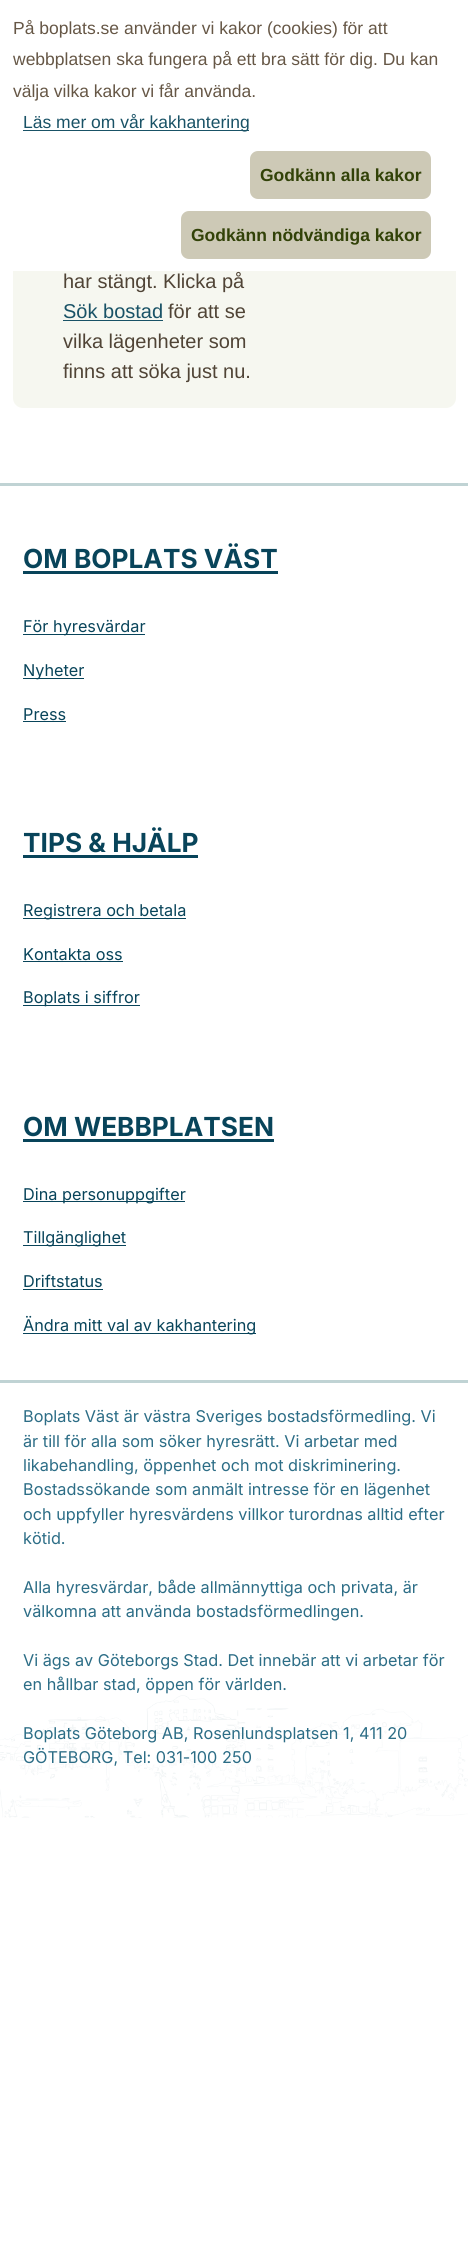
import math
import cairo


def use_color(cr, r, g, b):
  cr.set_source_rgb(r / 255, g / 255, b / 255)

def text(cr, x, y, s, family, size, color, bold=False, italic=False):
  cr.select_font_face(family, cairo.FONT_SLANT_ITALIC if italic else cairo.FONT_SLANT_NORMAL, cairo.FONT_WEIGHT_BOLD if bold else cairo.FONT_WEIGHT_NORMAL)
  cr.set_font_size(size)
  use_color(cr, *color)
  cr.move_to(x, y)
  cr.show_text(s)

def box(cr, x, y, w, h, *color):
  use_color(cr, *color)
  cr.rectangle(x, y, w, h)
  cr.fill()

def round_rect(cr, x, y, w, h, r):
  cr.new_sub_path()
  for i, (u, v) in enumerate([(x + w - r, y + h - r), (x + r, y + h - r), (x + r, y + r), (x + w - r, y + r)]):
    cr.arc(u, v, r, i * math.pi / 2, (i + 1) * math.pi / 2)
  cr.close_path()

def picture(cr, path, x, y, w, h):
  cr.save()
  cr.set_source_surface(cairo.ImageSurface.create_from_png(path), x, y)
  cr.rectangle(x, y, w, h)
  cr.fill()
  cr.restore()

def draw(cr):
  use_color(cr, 255, 255, 255)
  cr.paint()
  picture(cr, "img_01.png", 0, 1695, 468, 123)
  use_color(cr, 246, 247, 240)
  round_rect(cr, 13, 158, 443, 250, 10)
  cr.fill()
  box(cr, 13, 158, 443, 113, 255, 255, 255)
  box(cr, 23, 130, 226, 1, 25, 82, 102)
  use_color(cr, 205, 201, 182)
  round_rect(cr, 250, 151, 181, 48, 8)
  cr.fill()
  round_rect(cr, 181, 211, 250, 48, 8)
  cr.fill()
  box(cr, 63, 320, 100, 1, 25, 82, 102)
  box(cr, 0, 483, 468, 3, 192, 211, 212)
  box(cr, 23, 571, 255, 3, 8, 68, 90)
  box(cr, 23, 634, 122, 1, 8, 68, 90)
  box(cr, 23, 678, 61, 1, 8, 68, 90)
  box(cr, 23, 721, 43, 1, 8, 68, 90)
  box(cr, 23, 855, 175, 3, 8, 68, 90)
  box(cr, 23, 918, 163, 1, 8, 68, 90)
  box(cr, 23, 961, 100, 1, 8, 68, 90)
  box(cr, 23, 1005, 117, 1, 8, 68, 90)
  box(cr, 23, 1139, 251, 3, 8, 68, 90)
  box(cr, 23, 1201, 162, 1, 8, 68, 90)
  box(cr, 23, 1245, 103, 1, 8, 68, 90)
  box(cr, 23, 1289, 80, 1, 8, 68, 90)
  box(cr, 23, 1333, 233, 1, 8, 68, 90)
  box(cr, 0, 1380, 468, 3, 192, 211, 212)
  text(cr, 13, 34, "På boplats.se använder vi kakor (cookies) för att", "Liberation Sans", 17.5, (102, 87, 70))
  text(cr, 13, 65, "webbplatsen ska fungera på ett bra sätt för dig. Du kan", "Liberation Sans", 17.5, (102, 87, 70))
  text(cr, 13, 97, "välja vilka kakor vi får använda.", "Liberation Sans", 17.5, (102, 87, 70))
  text(cr, 23, 128, "Läs mer om vår kakhantering", "Liberation Sans", 17.5, (25, 82, 102))
  text(cr, 260, 181, "Godkänn alla kakor", "Liberation Sans", 17.5, (50, 66, 8), bold=True)
  text(cr, 191, 241, "Godkänn nödvändiga kakor", "Liberation Sans", 17.5, (50, 66, 8), bold=True)
  text(cr, 63, 288, "har stängt. Klicka på", "Liberation Sans", 20, (80, 68, 54))
  text(cr, 63, 318, "Sök bostad", "Liberation Sans", 20, (25, 82, 102))
  text(cr, 168, 318, "för att se", "Liberation Sans", 20, (80, 68, 54))
  text(cr, 63, 348, "vilka lägenheter som", "Liberation Sans", 20, (80, 68, 54))
  text(cr, 63, 378, "finns att söka just nu.", "Liberation Sans", 20, (80, 68, 54))
  text(cr, 23, 568, "OM BOPLATS VÄST", "Inter", 26.25, (8, 68, 90), bold=True)
  text(cr, 23, 632, "För hyresvärdar", "Inter", 16.25, (8, 68, 90))
  text(cr, 23, 676, "Nyheter", "Inter", 16.25, (8, 68, 90))
  text(cr, 23, 720, "Press", "Inter", 16.25, (8, 68, 90))
  text(cr, 23, 852, "TIPS & HJÄLP", "Inter", 26.25, (8, 68, 90), bold=True)
  text(cr, 23, 916, "Registrera och betala", "Inter", 16.25, (8, 68, 90))
  text(cr, 23, 960, "Kontakta oss", "Inter", 16.25, (8, 68, 90))
  text(cr, 23, 1003, "Boplats i siffror", "Inter", 16.25, (8, 68, 90))
  text(cr, 23, 1136, "OM WEBBPLATSEN", "Inter", 26.25, (8, 68, 90), bold=True)
  text(cr, 23, 1200, "Dina personuppgifter", "Inter", 16.25, (8, 68, 90))
  text(cr, 23, 1243, "Tillgänglighet", "Inter", 16.25, (8, 68, 90))
  text(cr, 23, 1287, "Driftstatus", "Inter", 16.25, (8, 68, 90))
  text(cr, 23, 1331, "Ändra mitt val av kakhantering", "Inter", 16.25, (8, 68, 90))
  text(cr, 23, 1422, "Boplats Väst är västra Sveriges bostadsförmedling. Vi", "Inter", 16.25, (44, 109, 134))
  text(cr, 23, 1447, "är till för alla som söker hyresrätt. Vi arbetar med", "Inter", 16.25, (44, 109, 134))
  text(cr, 23, 1471, "likabehandling, öppenhet och mot diskriminering.", "Inter", 16.25, (44, 109, 134))
  text(cr, 23, 1495, "Bostadssökande som anmält intresse för en lägenhet", "Inter", 16.25, (44, 109, 134))
  text(cr, 23, 1520, "och uppfyller hyresvärdens villkor turordnas alltid efter", "Inter", 16.25, (44, 109, 134))
  text(cr, 23, 1544, "kötid.", "Inter", 16.25, (44, 109, 134))
  text(cr, 23, 1593, "Alla hyresvärdar, både allmännyttiga och privata, är", "Inter", 16.25, (44, 109, 134))
  text(cr, 23, 1617, "välkomna att använda bostadsförmedlingen.", "Inter", 16.25, (44, 109, 134))
  text(cr, 23, 1666, "Vi ägs av Göteborgs Stad. Det innebär att vi arbetar för", "Inter", 16.25, (44, 109, 134))
  text(cr, 23, 1690, "en hållbar stad, öppen för världen.", "Inter", 16.25, (44, 109, 134))
  text(cr, 23, 1739, "Boplats Göteborg AB, Rosenlundsplatsen 1, 411 20", "Inter", 16.25, (44, 109, 134))
  text(cr, 23, 1763, "GÖTEBORG, Tel: 031-100 250", "Inter", 16.25, (44, 109, 134))


surface = cairo.ImageSurface(cairo.FORMAT_RGB24, 468, 2253)
cr = cairo.Context(surface)
options = cairo.FontOptions()
options.set_hint_metrics(cairo.HINT_METRICS_OFF)
options.set_hint_style(cairo.HINT_STYLE_NONE)
cr.set_font_options(options)
cr.set_miter_limit(4)
draw(cr)
surface.write_to_png("out.png")
